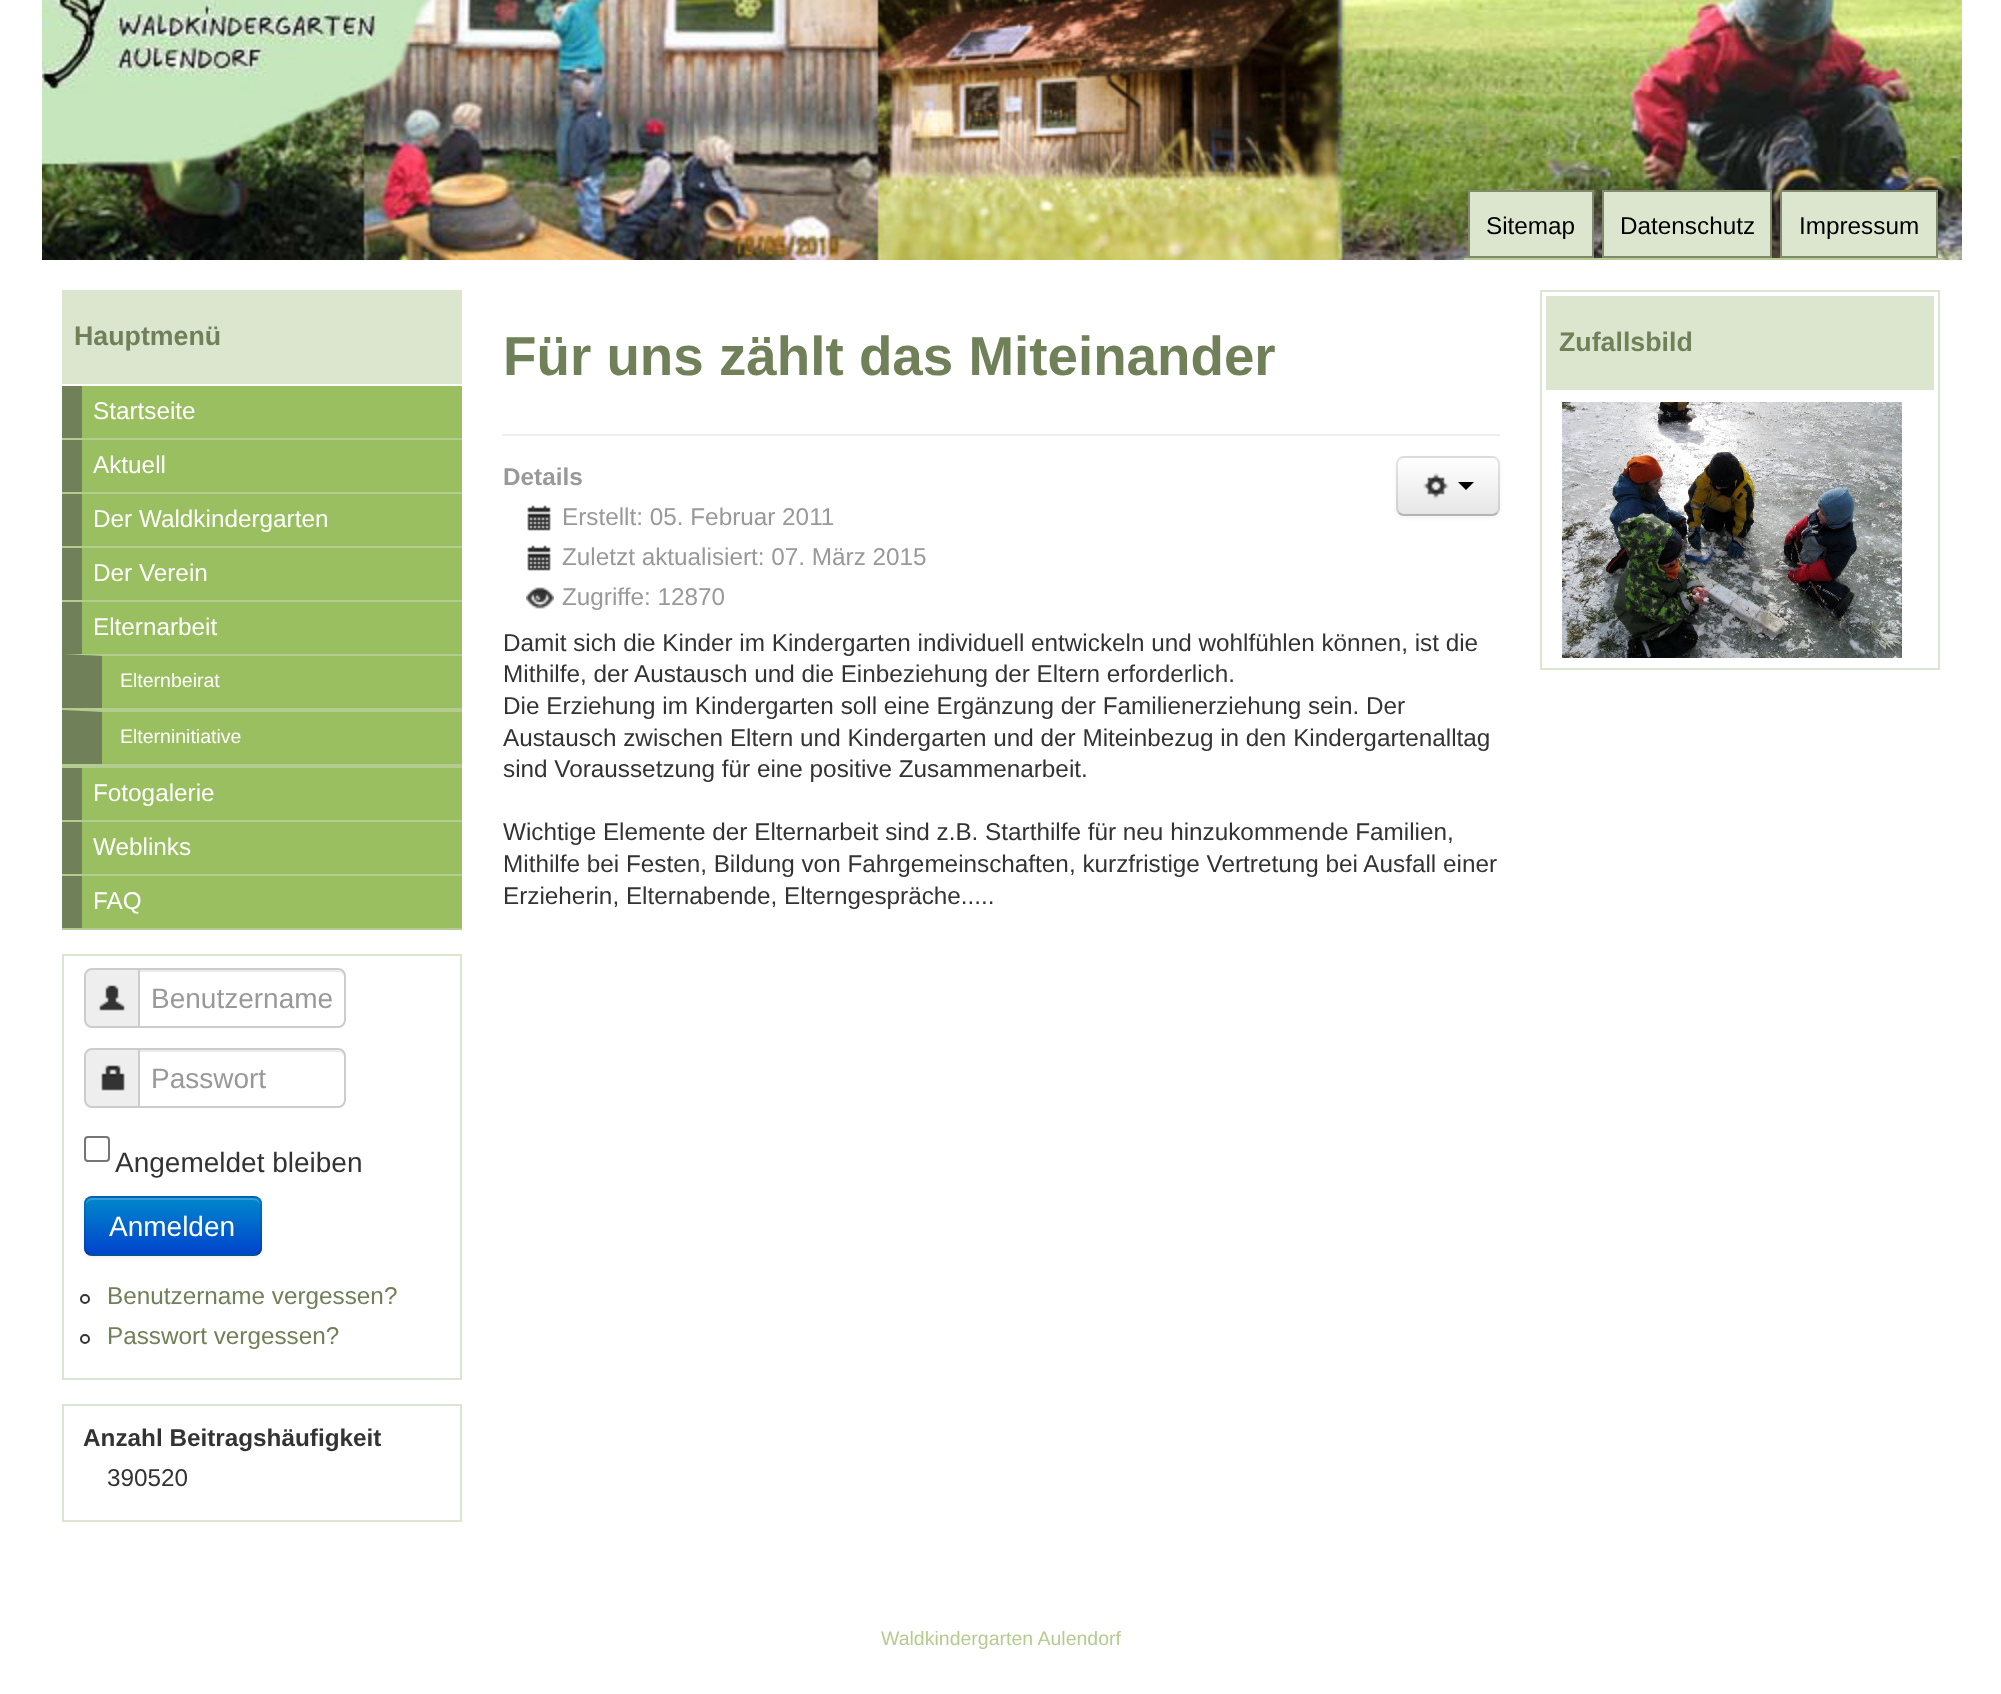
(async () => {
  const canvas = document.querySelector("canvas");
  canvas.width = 2001;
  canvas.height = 1694;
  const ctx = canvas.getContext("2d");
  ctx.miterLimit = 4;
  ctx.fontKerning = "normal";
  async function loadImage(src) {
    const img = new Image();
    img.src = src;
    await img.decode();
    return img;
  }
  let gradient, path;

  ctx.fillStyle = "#ffffff";
  ctx.fillRect(0, 0, 2001, 1694);
  ctx.drawImage(await loadImage("img/1.png"), 42, 0, 1920, 260);
  ctx.fillStyle = "#dce6cf";
  ctx.beginPath();
  ctx.rect(1469, 191, 124, 66);
  ctx.fill();
  ctx.strokeStyle = "#80896c";
  ctx.lineWidth = 2;
  ctx.stroke();
  ctx.beginPath();
  ctx.rect(1603, 191, 168, 66);
  ctx.fill();
  ctx.stroke();
  ctx.fillStyle = "#b4cc8f";
  ctx.fillRect(1464, 258, 478, 2);
  ctx.fillStyle = "#dce6cf";
  ctx.beginPath();
  ctx.rect(1781, 191, 156, 66);
  ctx.fill();
  ctx.stroke();
  for (const [x, y, w, h, color] of [
    [62, 290, 400, 94, "#dce6cf"],
    [62, 438, 400, 2, "#b4cc8f"],
    [82, 386, 380, 52, "#99bf60"],
    [62, 386, 20, 52, "#708059"],
    [62, 492, 400, 2, "#b4cc8f"],
    [82, 440, 380, 52, "#99bf60"],
    [62, 440, 20, 52, "#708059"],
    [62, 546, 400, 2, "#b4cc8f"],
    [82, 494, 380, 52, "#99bf60"],
    [62, 494, 20, 52, "#708059"],
    [62, 600, 400, 2, "#b4cc8f"],
    [82, 548, 380, 52, "#99bf60"],
    [62, 548, 20, 52, "#708059"],
    [62, 764, 400, 4, "#b4cc8f"],
    [82, 602, 380, 52, "#99bf60"],
    [62, 602, 20, 52, "#708059"],
    [62, 708, 400, 2, "#b4cc8f"],
    [63, 654, 399, 54, "#99bf60"],
  ]) {
    ctx.fillStyle = color;
    ctx.fillRect(x, y, w, h);
  }
  ctx.fillStyle = "#b4cc8f";
  path = new Path2D("M62 654H462V656H102Z");
  ctx.fill(path);
  ctx.fillStyle = "#708059";
  path = new Path2D("M62 708V654L102 656V708Z");
  ctx.fill(path);
  ctx.fillStyle = "#99bf60";
  ctx.fillRect(63, 710, 399, 54);
  ctx.fillStyle = "#b4cc8f";
  path = new Path2D("M62 710H462V712H102Z");
  ctx.fill(path);
  ctx.fillStyle = "#708059";
  path = new Path2D("M62 764V710L102 712V764Z");
  ctx.fill(path);
  for (const [x, y, w, h, color] of [
    [62, 820, 400, 2, "#b4cc8f"],
    [82, 768, 380, 52, "#99bf60"],
    [62, 768, 20, 52, "#708059"],
    [62, 874, 400, 2, "#b4cc8f"],
    [82, 822, 380, 52, "#99bf60"],
    [62, 822, 20, 52, "#708059"],
    [62, 928, 400, 2, "#b4cc8f"],
    [82, 876, 380, 52, "#99bf60"],
    [62, 876, 20, 52, "#708059"],
  ]) {
    ctx.fillStyle = color;
    ctx.fillRect(x, y, w, h);
  }
  ctx.strokeStyle = "#dce6cf";
  ctx.strokeRect(63, 955, 398, 424);
  ctx.fillStyle = "#eeeeee";
  ctx.beginPath();
  ctx.roundRect(85, 969, 54, 58, [7, 0, 0, 7]);
  ctx.fill();
  ctx.strokeStyle = "#cccccc";
  ctx.stroke();
  ctx.drawImage(await loadImage("img/2.png"), 99, 985, 26, 27);
  ctx.fillStyle = "#ffffff";
  ctx.beginPath();
  ctx.roundRect(138, 968, 208, 60, [0, 8, 8, 0]);
  ctx.fill();
  ctx.fillStyle = "#ececec";
  path = new Path2D("M140 972H338C341 972 344 975 344 978V976C344 973 341 970 338 970H140Z");
  ctx.fill(path);
  ctx.beginPath();
  ctx.roundRect(139, 969, 206, 58, [0, 7, 7, 0]);
  ctx.stroke();
  ctx.fillStyle = "#eeeeee";
  ctx.beginPath();
  ctx.roundRect(85, 1049, 54, 58, [7, 0, 0, 7]);
  ctx.fill();
  ctx.stroke();
  ctx.drawImage(await loadImage("img/3.png"), 101, 1065, 24, 27);
  ctx.fillStyle = "#ffffff";
  ctx.beginPath();
  ctx.roundRect(138, 1048, 208, 60, [0, 8, 8, 0]);
  ctx.fill();
  ctx.fillStyle = "#ececec";
  path = new Path2D("M140 1052H338C341 1052 344 1055 344 1058V1056C344 1053 341 1050 338 1050H140Z");
  ctx.fill(path);
  ctx.beginPath();
  ctx.roundRect(139, 1049, 206, 58, [0, 7, 7, 0]);
  ctx.stroke();
  ctx.beginPath();
  ctx.roundRect(85, 1137, 24, 24, 3);
  ctx.strokeStyle = "#767676";
  ctx.stroke();
  ctx.fillStyle = "rgba(0, 0, 0, 0.05)";
  ctx.filter = "blur(2px)";
  ctx.beginPath();
  ctx.roundRect(84, 1198, 178, 60, 8);
  ctx.fill();
  ctx.filter = "none";
  ctx.fillStyle = "#006dcc";
  ctx.beginPath();
  ctx.roundRect(84, 1196, 178, 60, 8);
  ctx.fill();
  ctx.save();
  ctx.beginPath();
  ctx.roundRect(84, 1196, 178, 60, 8);
  ctx.clip();
  gradient = ctx.createLinearGradient(173, 1198, 173, 1254);
  gradient.addColorStop(0, "#0088cc");
  gradient.addColorStop(1, "#0044cc");
  ctx.fillStyle = gradient;
  ctx.fillRect(84, 1198, 178, 56);
  ctx.restore();
  ctx.fillStyle = "rgba(255, 255, 255, 0.2)";
  path = new Path2D("M92 1200H254C257 1200 260 1203 260 1206V1204C260 1201 257 1198 254 1198H92C89 1198 86 1201 86 1204V1206C86 1203 89 1200 92 1200Z");
  ctx.fill(path);
  path = new Path2D("M259 1253C257.5 1254.5 256 1255 254 1255H92C90 1255 88.5 1254.5 87 1253");
  ctx.strokeStyle = "rgba(0, 0, 0, 0.25)";
  ctx.stroke(path);
  path = new Path2D("M87 1253C84 1250 85 1244.5 85 1240.5V1211.5C85 1206 84 1197 92 1197H227C265 1197 261 1191 261 1226V1240.5C261 1244.5 262 1250 259 1253");
  ctx.strokeStyle = "rgba(0, 0, 0, 0.1)";
  ctx.stroke(path);
  ctx.beginPath();
  ctx.arc(85, 1299, 4, 0, Math.PI * 2);
  ctx.strokeStyle = "#333333";
  ctx.stroke();
  ctx.beginPath();
  ctx.arc(85, 1339, 4, 0, Math.PI * 2);
  ctx.stroke();
  ctx.strokeStyle = "#dce6cf";
  ctx.strokeRect(63, 1405, 398, 116);
  ctx.fillStyle = "#eeeeee";
  ctx.fillRect(502, 434, 998, 2);
  ctx.drawImage(await loadImage("img/4.png"), 527, 505, 24, 26);
  ctx.drawImage(await loadImage("img/4.png"), 527, 545, 24, 26);
  ctx.drawImage(await loadImage("img/5.png"), 526, 587, 28, 22);
  ctx.fillStyle = "rgba(0, 0, 0, 0.05)";
  ctx.filter = "blur(2px)";
  ctx.beginPath();
  ctx.roundRect(1396, 458, 104, 60, 8);
  ctx.fill();
  ctx.filter = "none";
  ctx.fillStyle = "#f5f5f5";
  ctx.beginPath();
  ctx.roundRect(1396, 456, 104, 60, 8);
  ctx.fill();
  ctx.save();
  ctx.beginPath();
  ctx.roundRect(1396, 456, 104, 60, 8);
  ctx.clip();
  gradient = ctx.createLinearGradient(1448, 458, 1448, 514);
  gradient.addColorStop(0, "#ffffff");
  gradient.addColorStop(1, "#e6e6e6");
  ctx.fillStyle = gradient;
  ctx.fillRect(1396, 458, 104, 56);
  ctx.restore();
  path = new Path2D("M1497 513C1495.5 514.5 1494 515 1492 515H1404C1402 515 1400.5 514.5 1399 513");
  ctx.strokeStyle = "#b3b3b3";
  ctx.stroke(path);
  path = new Path2D("M1399 513C1397.5 511.5 1397 510 1397 508V464C1397 462 1397.5 460.5 1399 459C1400.5 457.5 1402 457 1404 457H1492C1494 457 1495.5 457.5 1497 459C1498.5 460.5 1499 462 1499 464V508C1499 510 1498.5 511.5 1497 513");
  ctx.strokeStyle = "rgba(0, 0, 0, 0.1)";
  ctx.stroke(path);
  ctx.drawImage(await loadImage("img/6.png"), 1423, 473, 26, 26);
  ctx.fillStyle = "#000000";
  path = new Path2D("M1458 482H1474L1466 490Z");
  ctx.fill(path);
  ctx.strokeStyle = "#dce6cf";
  ctx.strokeRect(1541, 291, 398, 378);
  ctx.fillStyle = "#dce6cf";
  ctx.fillRect(1546, 296, 388, 94);
  ctx.drawImage(await loadImage("img/7.png"), 1562, 402, 340, 256);
  ctx.font = "24.3px Liberation Sans";
  ctx.fillStyle = "#000000";
  for (const [text, x, y] of [
    ["Sitemap", 1486, 234],
    ["Datenschutz", 1620, 234],
    ["Impressum", 1799, 234],
  ]) {
    ctx.fillText(text, x, y);
  }
  ctx.font = "bold 26.75px Liberation Sans";
  ctx.fillStyle = "#708059";
  ctx.fillText("Hauptmenü", 74, 345);
  ctx.font = "24.3px Liberation Sans";
  ctx.fillStyle = "#ffffff";
  for (const [text, x, y] of [
    ["Startseite", 93, 419],
    ["Aktuell", 93, 473],
    ["Der Waldkindergarten", 93, 527],
    ["Der Verein", 93, 581],
    ["Elternarbeit", 93, 635],
  ]) {
    ctx.fillText(text, x, y);
  }
  ctx.font = "19.5px Liberation Sans";
  ctx.fillText("Elternbeirat", 120, 687);
  ctx.fillText("Elterninitiative", 120, 743);
  ctx.font = "24.3px Liberation Sans";
  for (const [text, x, y] of [
    ["Fotogalerie", 93, 801],
    ["Weblinks", 93, 855],
    ["FAQ", 93, 909],
  ]) {
    ctx.fillText(text, x, y);
  }
  ctx.font = "28px Liberation Sans";
  ctx.fillStyle = "#999999";
  ctx.fillText("Benutzername", 151, 1008);
  ctx.fillText("Passwort", 151, 1088);
  ctx.fillStyle = "#333333";
  ctx.fillText("Angemeldet bleiben", 115, 1172);
  ctx.fillStyle = "#ffffff";
  ctx.fillText("Anmelden", 109, 1236);
  ctx.font = "24.3px Liberation Sans";
  ctx.fillStyle = "#708059";
  ctx.fillText("Benutzername vergessen?", 107, 1304);
  ctx.fillText("Passwort vergessen?", 107, 1344);
  ctx.font = "bold 24.3px Liberation Sans";
  ctx.fillStyle = "#333333";
  ctx.fillText("Anzahl Beitragshäufigkeit", 83, 1446);
  ctx.font = "24.3px Liberation Sans";
  ctx.fillText("390520", 107, 1486);
  ctx.font = "bold 54.75px Liberation Sans";
  ctx.fillStyle = "#708059";
  ctx.fillText("Für uns zählt das Miteinander", 503, 375);
  ctx.font = "bold 24.3px Liberation Sans";
  ctx.fillStyle = "#999999";
  ctx.fillText("Details", 503, 485);
  ctx.font = "24.3px Liberation Sans";
  for (const [text, x, y] of [
    ["Erstellt: 05. Februar 2011", 562, 525],
    ["Zuletzt aktualisiert: 07. März 2015", 562, 565],
    ["Zugriffe: 12870", 562, 605],
  ]) {
    ctx.fillText(text, x, y);
  }
  ctx.fillStyle = "#333333";
  for (const [text, x, y] of [
    ["Damit sich die Kinder im Kindergarten individuell entwickeln und wohlfühlen können, ist die", 503, 651],
    ["Mithilfe, der Austausch und die Einbeziehung der Eltern erforderlich.", 503, 682],
    ["Die Erziehung im Kindergarten soll eine Ergänzung der Familienerziehung sein. Der", 503, 714],
    ["Austausch zwischen Eltern und Kindergarten und der Miteinbezug in den Kindergartenalltag", 503, 746],
    ["sind Voraussetzung für eine positive Zusammenarbeit.", 503, 777],
    ["Wichtige Elemente der Elternarbeit sind z.B. Starthilfe für neu hinzukommende Familien,", 503, 840],
    ["Mithilfe bei Festen, Bildung von Fahrgemeinschaften, kurzfristige Vertretung bei Ausfall einer", 503, 872],
    ["Erzieherin, Elternabende, Elterngespräche.....", 503, 904],
  ]) {
    ctx.fillText(text, x, y);
  }
  ctx.font = "bold 26.75px Liberation Sans";
  ctx.fillStyle = "#708059";
  ctx.fillText("Zufallsbild", 1559, 351);
  ctx.font = "19.5px Liberation Sans";
  ctx.fillStyle = "#b4cc8f";
  ctx.fillText("Waldkindergarten Aulendorf", 881, 1645);
})();
